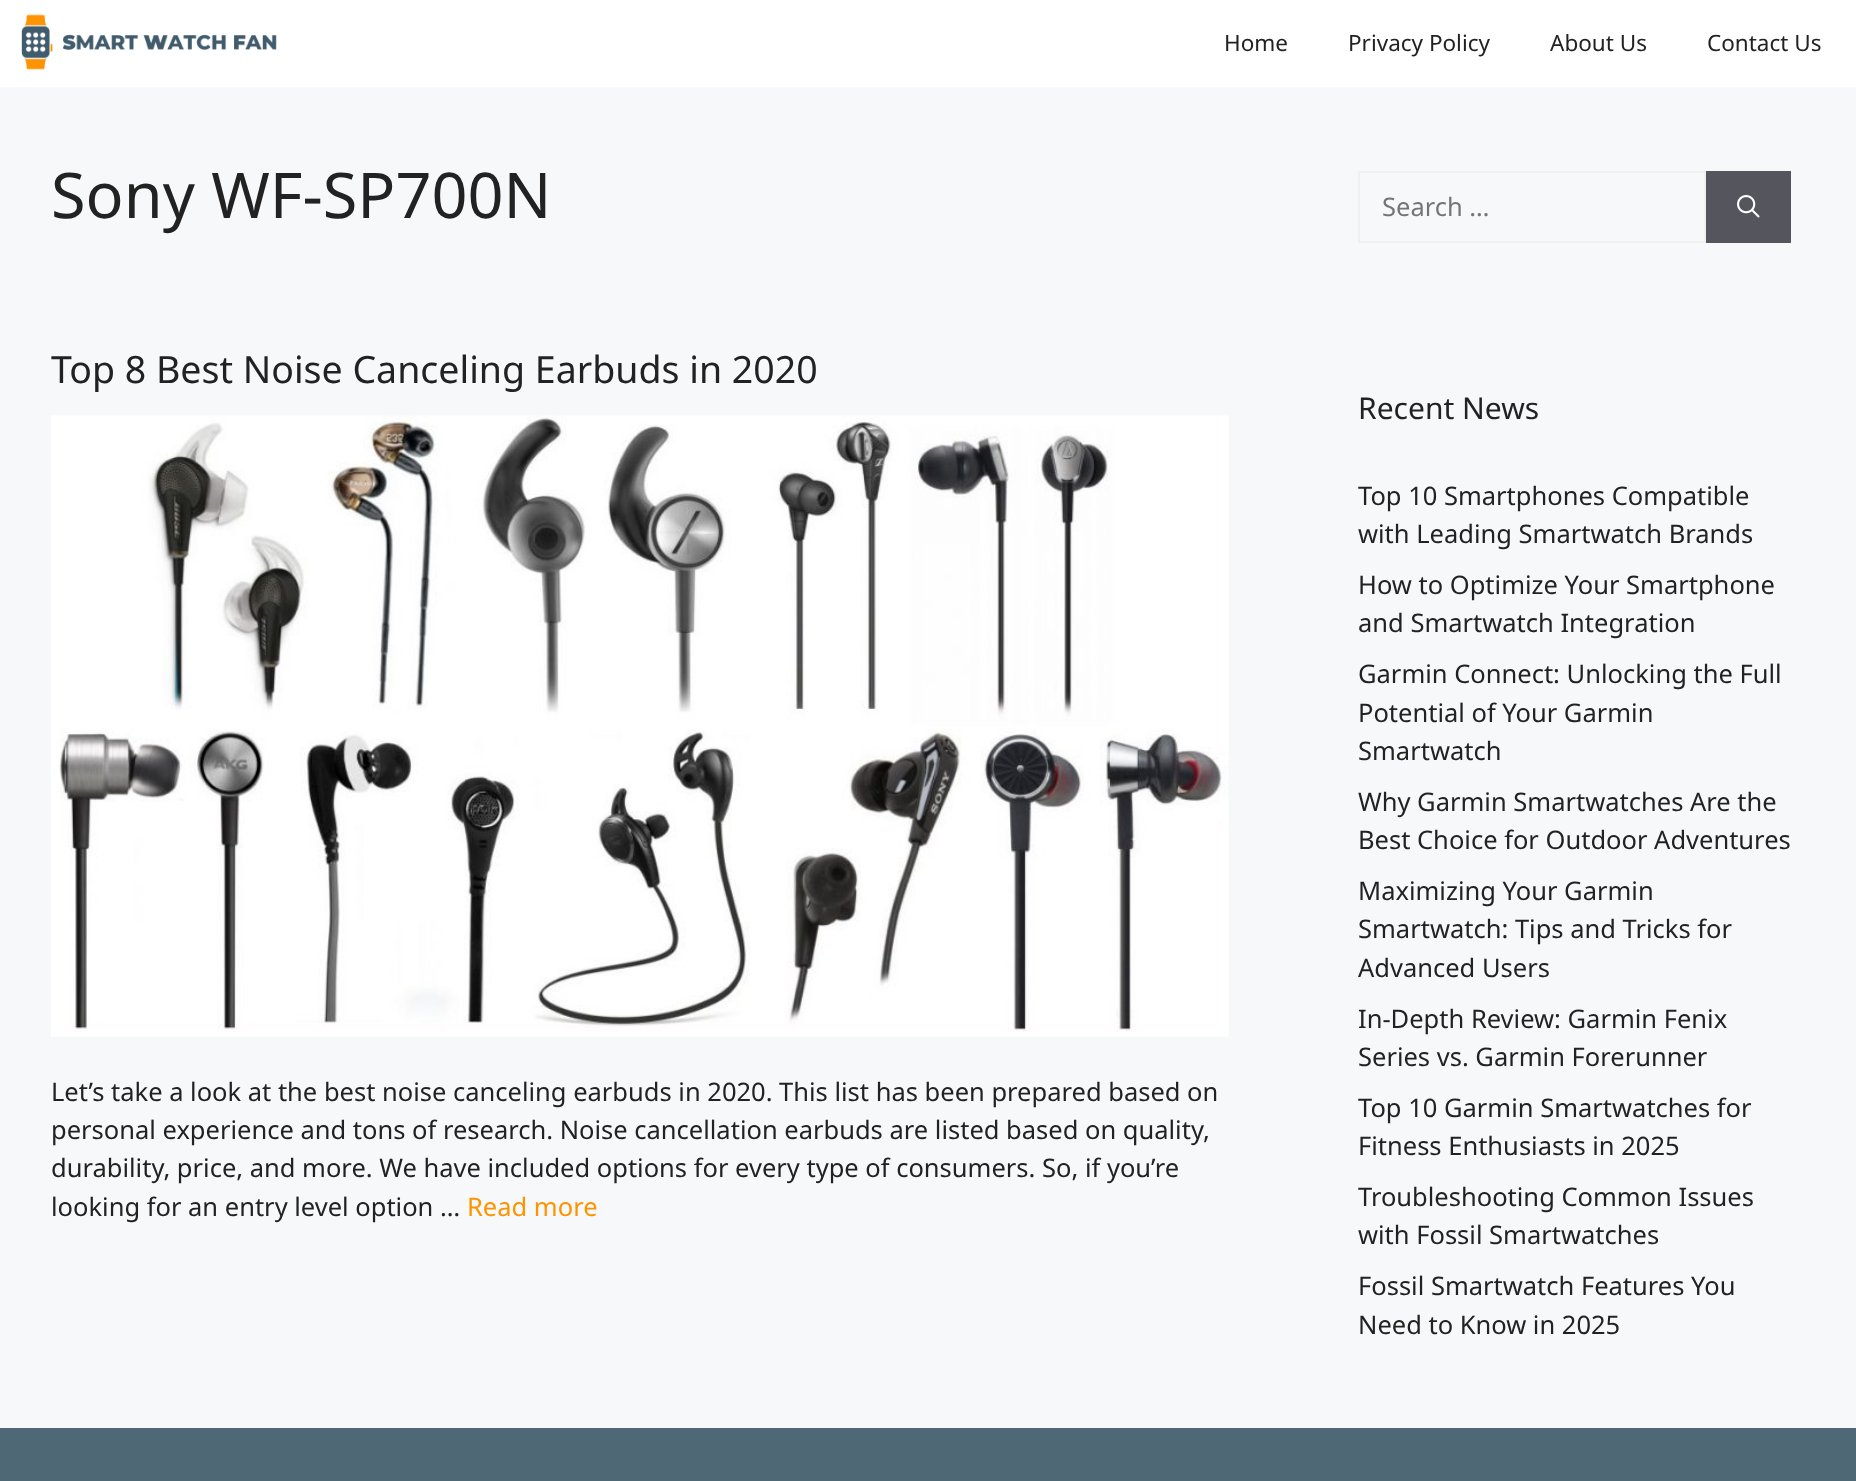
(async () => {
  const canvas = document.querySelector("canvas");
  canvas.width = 1856;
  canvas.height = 1481;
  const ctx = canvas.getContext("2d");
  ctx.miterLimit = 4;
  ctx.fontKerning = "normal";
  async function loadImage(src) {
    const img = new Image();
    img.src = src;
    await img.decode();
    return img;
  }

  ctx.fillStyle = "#f7f8f9";
  ctx.fillRect(0, 0, 1856, 1481);
  ctx.fillStyle = "#ffffff";
  ctx.fillRect(0, 0, 1856, 87);
  ctx.drawImage(await loadImage("img/1.png"), 21, 14, 256, 56);
  ctx.drawImage(await loadImage("img/2.png"), 51, 415, 1178, 622);
  ctx.strokeStyle = "#f0f0f0";
  ctx.lineWidth = 2;
  ctx.strokeRect(1359, 172, 346, 70);
  ctx.fillStyle = "#55555e";
  ctx.fillRect(1706, 171, 85, 72);
  ctx.drawImage(await loadImage("img/3.png"), 1737, 195, 23, 23);
  ctx.fillStyle = "#4f6876";
  ctx.fillRect(0, 1428, 1856, 53);
  ctx.font = "22.5px Noto Sans";
  ctx.fillStyle = "#222222";
  for (const [text, x, y] of [
    ["Home", 1224, 51],
    ["Privacy Policy", 1348, 51],
    ["About Us", 1550, 51],
    ["Contact Us", 1707, 51],
  ]) {
    ctx.fillText(text, x, y);
  }
  ctx.font = "63px Noto Sans";
  ctx.fillText("Sony WF-SP700N", 51, 218);
  ctx.font = "37.5px Noto Sans";
  ctx.fillText("Top 8 Best Noise Canceling Earbuds in 2020", 51, 383);
  ctx.font = "25.5px Noto Sans";
  for (const [text, x, y] of [
    ["Let’s take a look at the best noise canceling earbuds in 2020. This list has been prepared based on", 51, 1101],
    ["personal experience and tons of research. Noise cancellation earbuds are listed based on quality,", 51, 1139],
    ["durability, price, and more. We have included options for every type of consumers. So, if you’re", 51, 1177],
    ["looking for an entry level option …", 51, 1216],
  ]) {
    ctx.fillText(text, x, y);
  }
  ctx.fillStyle = "#fe9300";
  ctx.fillText("Read more", 467, 1216);
  ctx.fillStyle = "#757575";
  ctx.fillText("Search …", 1382, 216);
  ctx.font = "30px Noto Sans";
  ctx.fillStyle = "#222222";
  ctx.fillText("Recent News", 1358, 419);
  ctx.font = "25.5px Noto Sans";
  for (const [text, x, y] of [
    ["Top 10 Smartphones Compatible", 1358, 505],
    ["with Leading Smartwatch Brands", 1358, 543],
    ["How to Optimize Your Smartphone", 1358, 594],
    ["and Smartwatch Integration", 1358, 632],
    ["Garmin Connect: Unlocking the Full", 1358, 683],
    ["Potential of Your Garmin", 1358, 722],
    ["Smartwatch", 1358, 760],
    ["Why Garmin Smartwatches Are the", 1358, 811],
    ["Best Choice for Outdoor Adventures", 1358, 849],
    ["Maximizing Your Garmin", 1358, 900],
    ["Smartwatch: Tips and Tricks for", 1358, 938],
    ["Advanced Users", 1358, 977],
    ["In-Depth Review: Garmin Fenix", 1358, 1028],
    ["Series vs. Garmin Forerunner", 1358, 1066],
    ["Top 10 Garmin Smartwatches for", 1358, 1117],
    ["Fitness Enthusiasts in 2025", 1358, 1155],
    ["Troubleshooting Common Issues", 1358, 1206],
    ["with Fossil Smartwatches", 1358, 1244],
    ["Fossil Smartwatch Features You", 1358, 1295],
    ["Need to Know in 2025", 1358, 1334],
  ]) {
    ctx.fillText(text, x, y);
  }
})();
